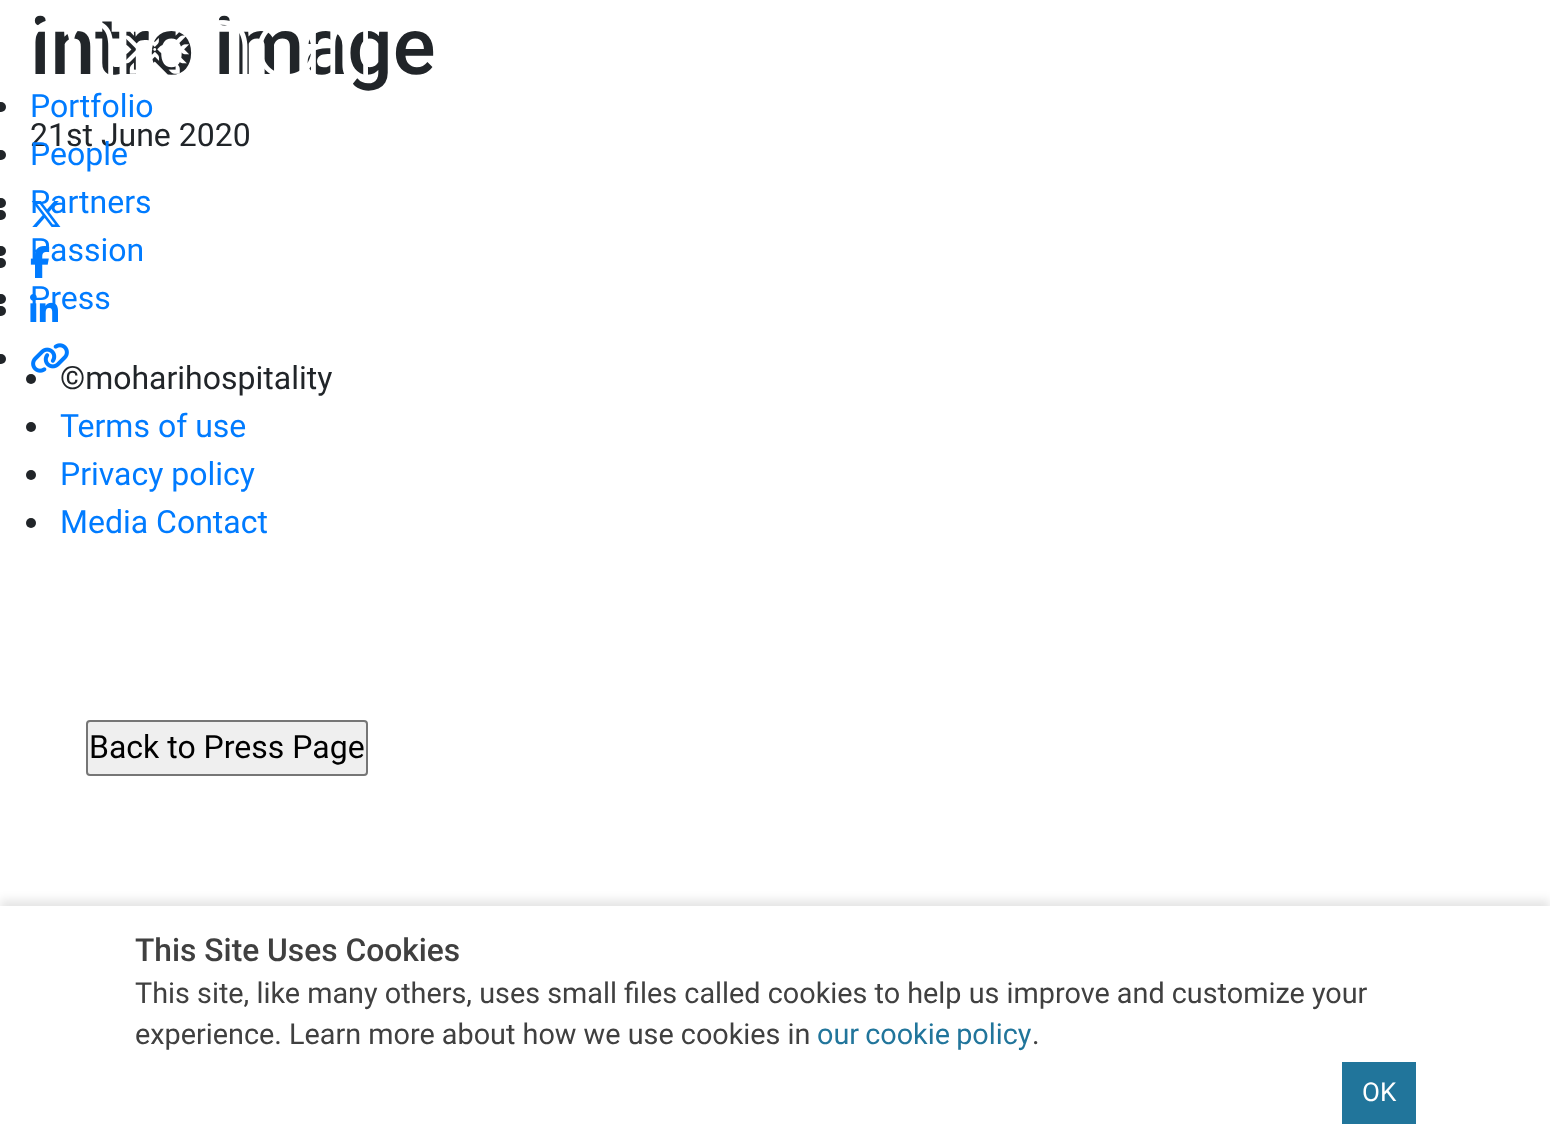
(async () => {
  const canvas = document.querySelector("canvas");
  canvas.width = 1550;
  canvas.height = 1148;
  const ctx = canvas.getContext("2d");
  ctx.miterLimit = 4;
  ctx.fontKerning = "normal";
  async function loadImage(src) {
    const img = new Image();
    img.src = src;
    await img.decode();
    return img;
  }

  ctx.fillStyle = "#ffffff";
  ctx.fillRect(0, 0, 1550, 1148);
  ctx.fillStyle = "#212529";
  ctx.beginPath();
  ctx.arc(1, 215, 5, 0, Math.PI * 2);
  ctx.fill();
  ctx.drawImage(await loadImage("img/1.png"), 31, 201, 30, 26);
  ctx.beginPath();
  ctx.arc(1, 263, 5, 0, Math.PI * 2);
  ctx.fill();
  ctx.drawImage(await loadImage("img/2.png"), 30, 246, 20, 32);
  ctx.beginPath();
  ctx.arc(1, 311, 5, 0, Math.PI * 2);
  ctx.fill();
  ctx.drawImage(await loadImage("img/3.png"), 30, 294, 28, 28);
  ctx.beginPath();
  ctx.arc(1, 359, 5, 0, Math.PI * 2);
  ctx.fill();
  ctx.drawImage(await loadImage("img/4.png"), 31, 343, 38, 30);
  ctx.beginPath();
  ctx.arc(1, 107, 5, 0, Math.PI * 2);
  ctx.fill();
  ctx.beginPath();
  ctx.arc(1, 155, 5, 0, Math.PI * 2);
  ctx.fill();
  ctx.beginPath();
  ctx.arc(1, 203, 5, 0, Math.PI * 2);
  ctx.fill();
  ctx.beginPath();
  ctx.arc(1, 251, 5, 0, Math.PI * 2);
  ctx.fill();
  ctx.beginPath();
  ctx.arc(1, 299, 5, 0, Math.PI * 2);
  ctx.fill();
  ctx.beginPath();
  ctx.arc(31, 379, 5, 0, Math.PI * 2);
  ctx.fill();
  ctx.beginPath();
  ctx.arc(31, 427, 5, 0, Math.PI * 2);
  ctx.fill();
  ctx.beginPath();
  ctx.arc(31, 475, 5, 0, Math.PI * 2);
  ctx.fill();
  ctx.beginPath();
  ctx.arc(31, 523, 5, 0, Math.PI * 2);
  ctx.fill();
  ctx.fillStyle = "#efefef";
  ctx.beginPath();
  ctx.roundRect(87, 721, 280, 54, 3);
  ctx.fill();
  ctx.strokeStyle = "#767676";
  ctx.lineWidth = 2;
  ctx.stroke();
  ctx.fillStyle = "rgba(0, 0, 0, 0.1)";
  ctx.filter = "blur(5px)";
  ctx.beginPath();
  ctx.rect(0, 900, 1550, 242);
  ctx.fill();
  ctx.filter = "none";
  ctx.fillStyle = "#ffffff";
  ctx.fillRect(0, 906, 1550, 242);
  ctx.fillStyle = "#21759b";
  ctx.fillRect(1342, 1062, 74, 62);
  ctx.font = "500 80px Roboto";
  ctx.fillStyle = "#212529";
  ctx.fillText("intro image", 30, 74);
  ctx.font = "32px Roboto";
  ctx.fillText("21st June 2020", 30, 146);
  ctx.drawImage(await loadImage("img/5.png"), 35, 20, 333, 55);
  ctx.fillStyle = "#007bff";
  for (const [text, x, y] of [
    ["Portfolio", 30, 117],
    ["People", 30, 165],
    ["Partners", 30, 213],
    ["Passion", 30, 261],
    ["Press", 30, 309],
  ]) {
    ctx.fillText(text, x, y);
  }
  ctx.fillStyle = "#212529";
  ctx.fillText("©moharihospitality", 60, 389);
  ctx.fillStyle = "#007bff";
  for (const [text, x, y] of [
    ["Terms of use", 60, 437],
    ["Privacy policy", 60, 485],
    ["Media Contact", 60, 533],
  ]) {
    ctx.fillText(text, x, y);
  }
  ctx.fillStyle = "#000000";
  ctx.fillText("Back to Press Page", 89, 758);
  ctx.font = "500 31.75px Roboto";
  ctx.fillStyle = "#404040";
  ctx.fillText("This Site Uses Cookies", 135, 961);
  ctx.font = "28.8px Roboto";
  ctx.fillText("This site, like many others, uses small files called cookies to help us improve and customize your", 135, 1003);
  ctx.fillText("experience. Learn more about how we use cookies in", 135, 1044);
  ctx.wordSpacing = "-1px";
  ctx.fillStyle = "#21759b";
  ctx.fillText("our cookie policy", 817, 1044);
  ctx.wordSpacing = "0px";
  ctx.fillStyle = "#404040";
  ctx.fillText(".", 1032, 1044);
  ctx.font = "26px Roboto";
  ctx.fillStyle = "#ffffff";
  ctx.fillText("OK", 1362, 1101);
})();
